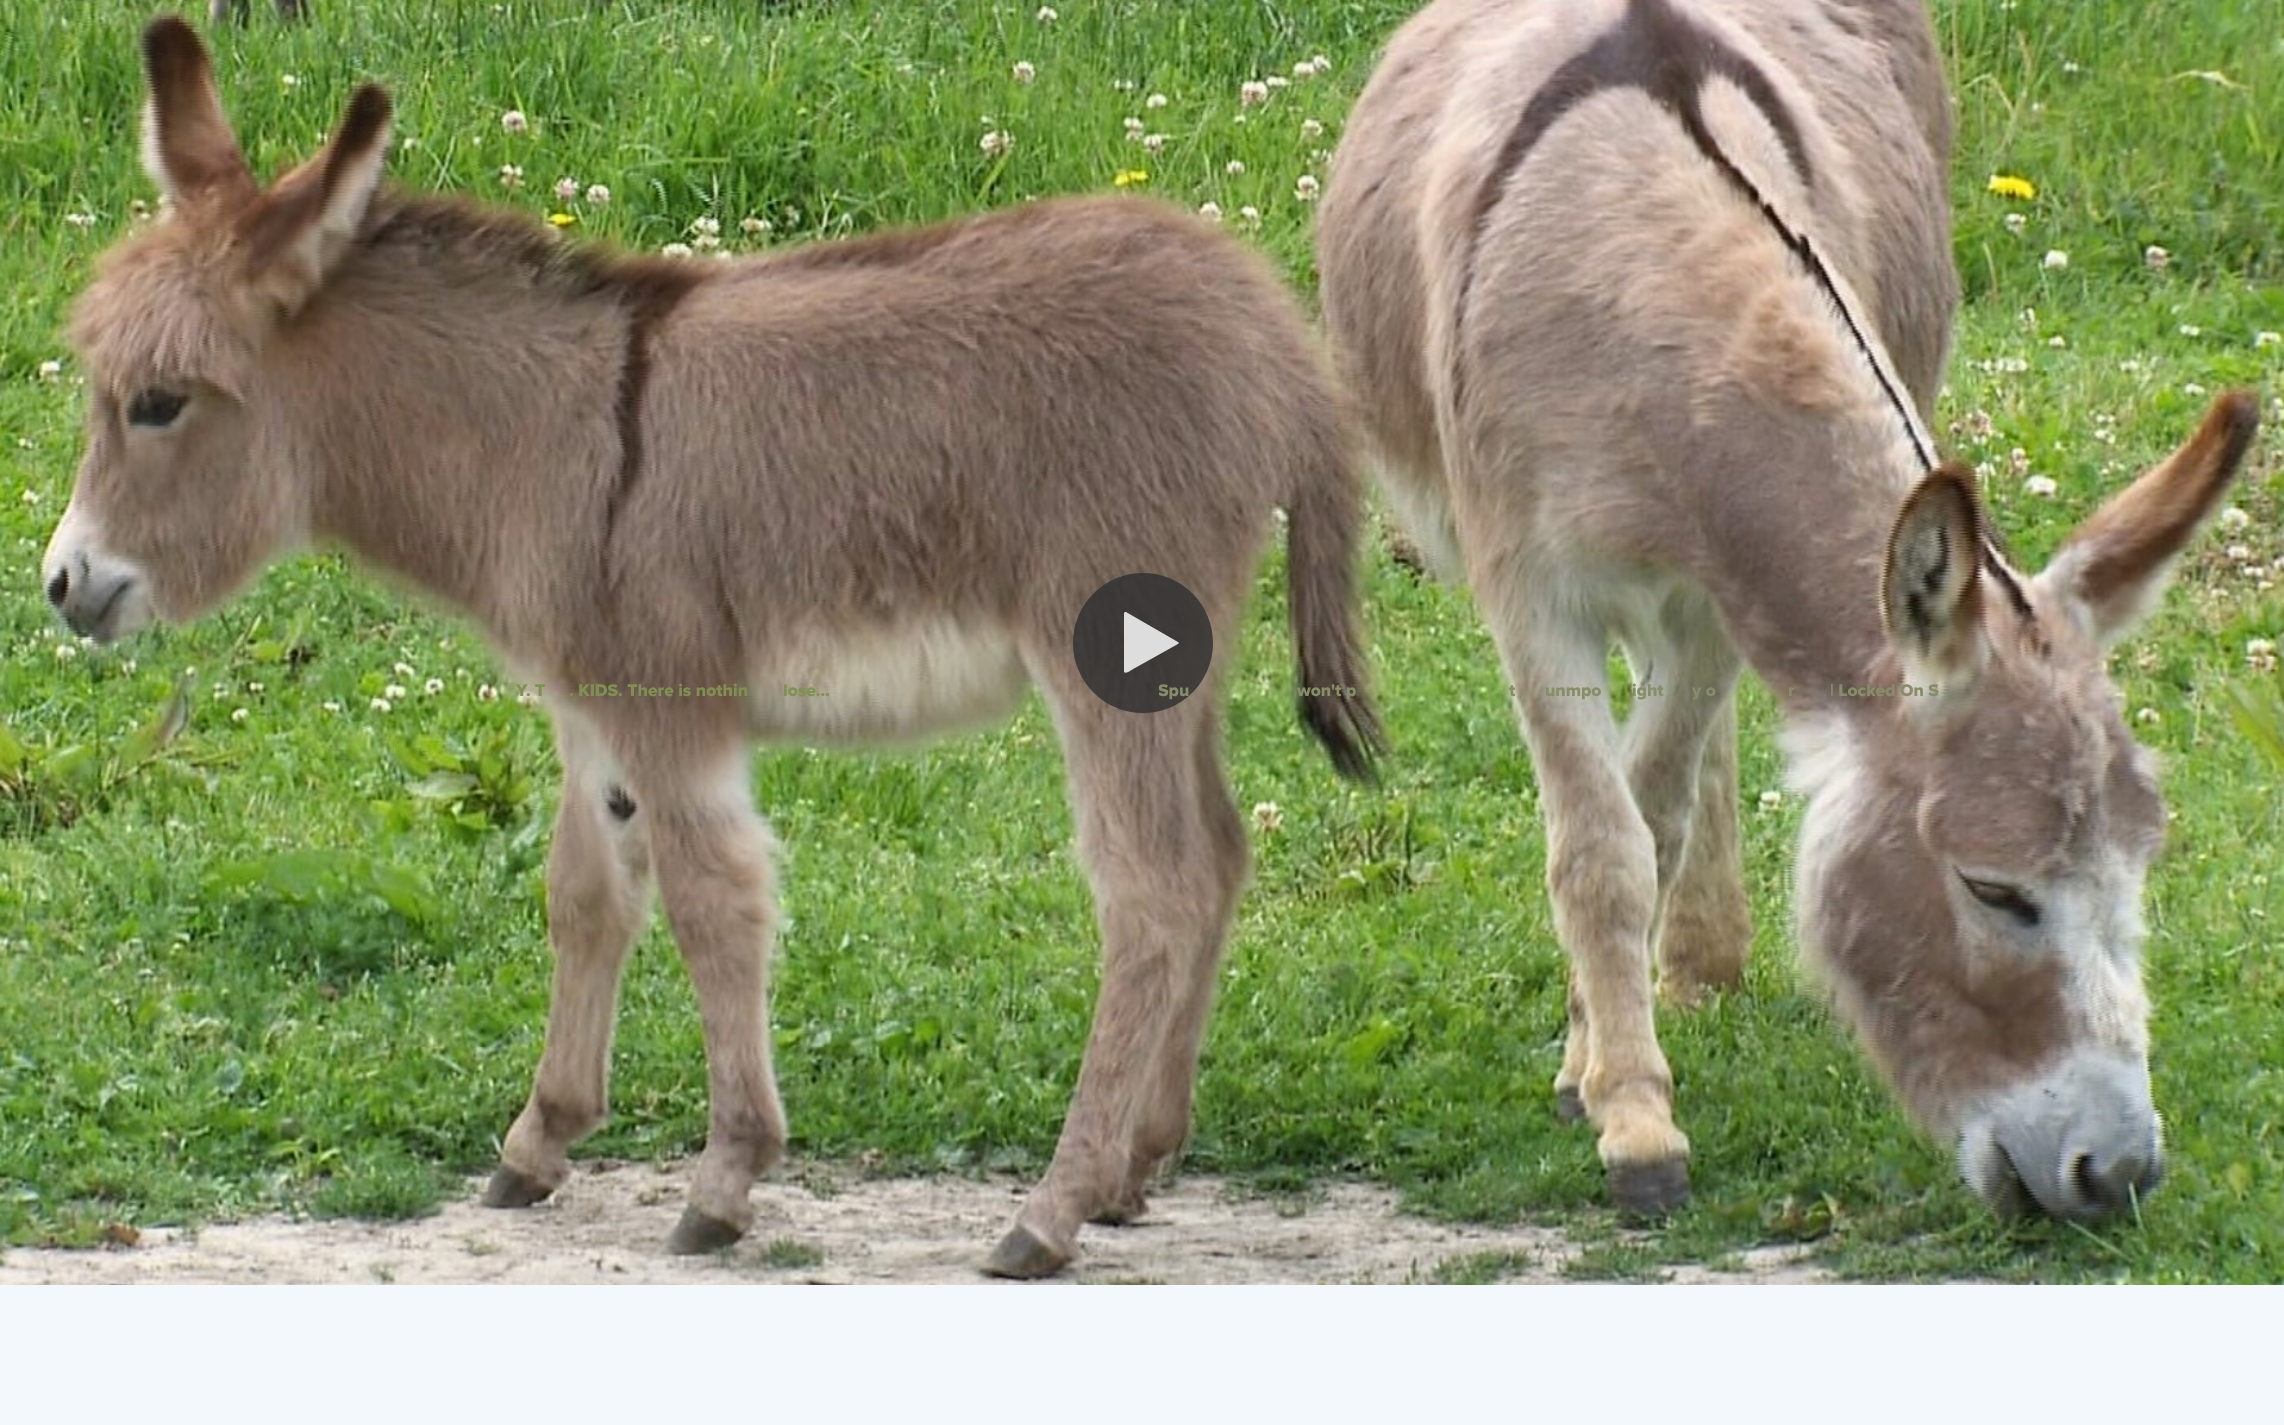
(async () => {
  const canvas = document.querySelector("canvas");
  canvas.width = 2284;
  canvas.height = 1425;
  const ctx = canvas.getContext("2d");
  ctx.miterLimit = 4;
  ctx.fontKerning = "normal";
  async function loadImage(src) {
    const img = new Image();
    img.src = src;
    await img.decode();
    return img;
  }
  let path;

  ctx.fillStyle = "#f3f8fc";
  ctx.fillRect(0, 0, 2284, 1425);
  ctx.drawImage(await loadImage("img/1.png"), 0, 0, 2284, 1285);
  ctx.fillStyle = "rgba(51, 51, 51, 0.85)";
  ctx.beginPath();
  ctx.arc(1143, 643, 70, 0, Math.PI * 2);
  ctx.fill();
  ctx.fillStyle = "#dddddd";
  path = new Path2D("M1178 644L1135 668C1134 668 1126 675 1124 672V613C1124 612 1125 612 1126 612L1178 642C1179 642 1179 643 1178 644Z");
  ctx.fill(path);
  ctx.font = "800 17.5px Proxima Nova";
  ctx.fillStyle = "#809054";
  for (const [text, x, y] of [
    ["Y. T", 516, 696],
    [". KIDS. There is nothin", 569, 696],
    ["lose…", 783, 696],
  ]) {
    ctx.fillText(text, x, y);
  }
  ctx.save();
  ctx.beginPath();
  ctx.rect(1159, 679, 1106, 25);
  ctx.clip();
  ctx.fillStyle = "#868d68";
  ctx.fillText("Spu", 1158, 696);
  ctx.restore();
  ctx.fillStyle = "#868d68";
  for (const [text, x, y] of [
    ["won't p", 1297, 696],
    ["t", 1509, 696],
    ["unmpo", 1545, 696],
    ["ight", 1632, 696],
    ["y o", 1692, 696],
    ["r", 1788, 696],
    ["| Locked On S", 1830, 696],
  ]) {
    ctx.fillText(text, x, y);
  }
})();
